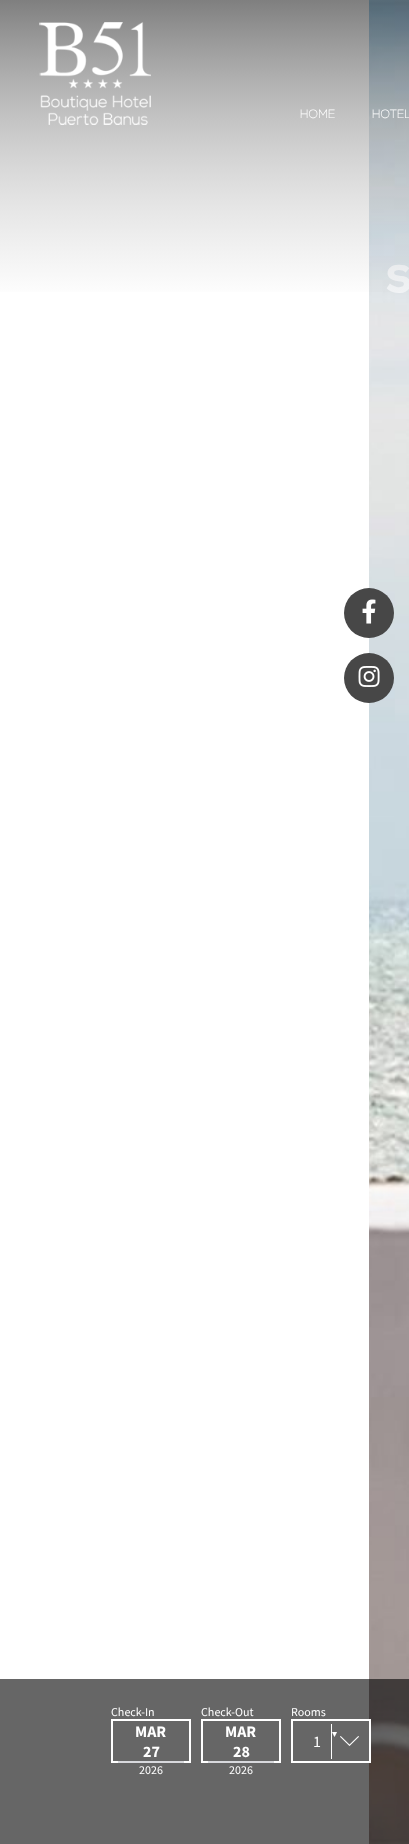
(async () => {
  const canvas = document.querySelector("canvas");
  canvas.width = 409;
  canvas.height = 1844;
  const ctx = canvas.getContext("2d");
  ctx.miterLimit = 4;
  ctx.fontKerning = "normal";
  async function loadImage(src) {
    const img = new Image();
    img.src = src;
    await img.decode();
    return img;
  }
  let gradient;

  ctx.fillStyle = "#ffffff";
  ctx.fillRect(0, 0, 409, 1844);
  ctx.drawImage(await loadImage("img/4.png"), 369, 0, 40, 1844);
  ctx.fillStyle = "#474747";
  ctx.beginPath();
  ctx.arc(369, 613, 25, 0, Math.PI * 2);
  ctx.fill();
  ctx.drawImage(await loadImage("img/2.png"), 362, 599, 14, 25);
  ctx.beginPath();
  ctx.arc(369, 678, 25, 0, Math.PI * 2);
  ctx.fill();
  ctx.drawImage(await loadImage("img/3.png"), 358, 666, 22, 21);
  ctx.fillStyle = "rgba(0, 0, 0, 0.6)";
  ctx.fillRect(0, 1679, 409, 165);
  ctx.strokeStyle = "#ffffff";
  ctx.lineWidth = 2;
  ctx.strokeRect(112, 1720, 78, 42);
  ctx.fillStyle = "#d8d9dd";
  ctx.fillRect(118, 1761, 66, 2);
  ctx.strokeRect(202, 1720, 78, 42);
  ctx.fillRect(208, 1761, 66, 2);
  ctx.strokeRect(292, 1720, 78, 42);
  ctx.drawImage(await loadImage("img/5.png"), 340, 1736, 19, 10);
  ctx.fillStyle = "#ffffff";
  ctx.fillRect(331, 1724, 1, 35);
  ctx.font = "bold 54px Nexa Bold";
  ctx.fillStyle = "#f2f4f6";
  ctx.fillText("s", 386, 292);
  gradient = ctx.createLinearGradient(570, 0, 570, 300);
  gradient.addColorStop(0, "rgba(0, 0, 0, 0.5)");
  gradient.addColorStop(0.25, "rgba(51, 51, 51, 0.4)");
  gradient.addColorStop(0.5, "rgba(102, 102, 102, 0.3)");
  gradient.addColorStop(0.75, "rgba(153, 153, 153, 0.2)");
  gradient.addColorStop(1, "rgba(153, 153, 153, 0)");
  ctx.fillStyle = gradient;
  ctx.fillRect(0, 0, 409, 292);
  ctx.font = "300 12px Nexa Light";
  ctx.fillStyle = "#ffffff";
  ctx.fillText("HOTEL", 372, 118);
  ctx.fillText("HOME", 300, 118);
  ctx.drawImage(await loadImage("img/1.png"), 39, 22, 112, 103);
  ctx.font = "12px Source Sans Pro";
  ctx.fillText("Check-In", 111, 1716);
  ctx.font = "bold 16px Source Sans Pro";
  ctx.fillText("MAR", 135, 1737);
  ctx.fillText("27", 143, 1757);
  ctx.font = "12px Source Sans Pro";
  ctx.fillText("2026", 139, 1774);
  ctx.fillText("Check-Out", 201, 1716);
  ctx.font = "bold 16px Source Sans Pro";
  ctx.fillText("MAR", 225, 1737);
  ctx.fillText("28", 233, 1757);
  ctx.font = "12px Source Sans Pro";
  ctx.fillText("2026", 229, 1774);
  ctx.fillText("Rooms", 291, 1716);
  ctx.letterSpacing = "-1px";
  ctx.font = "10px DejaVu Sans";
  ctx.fillText("▾", 332, 1737);
  ctx.letterSpacing = "0px";
  ctx.font = "16px Source Sans Pro";
  ctx.fillText("1", 313, 1747);
})();
